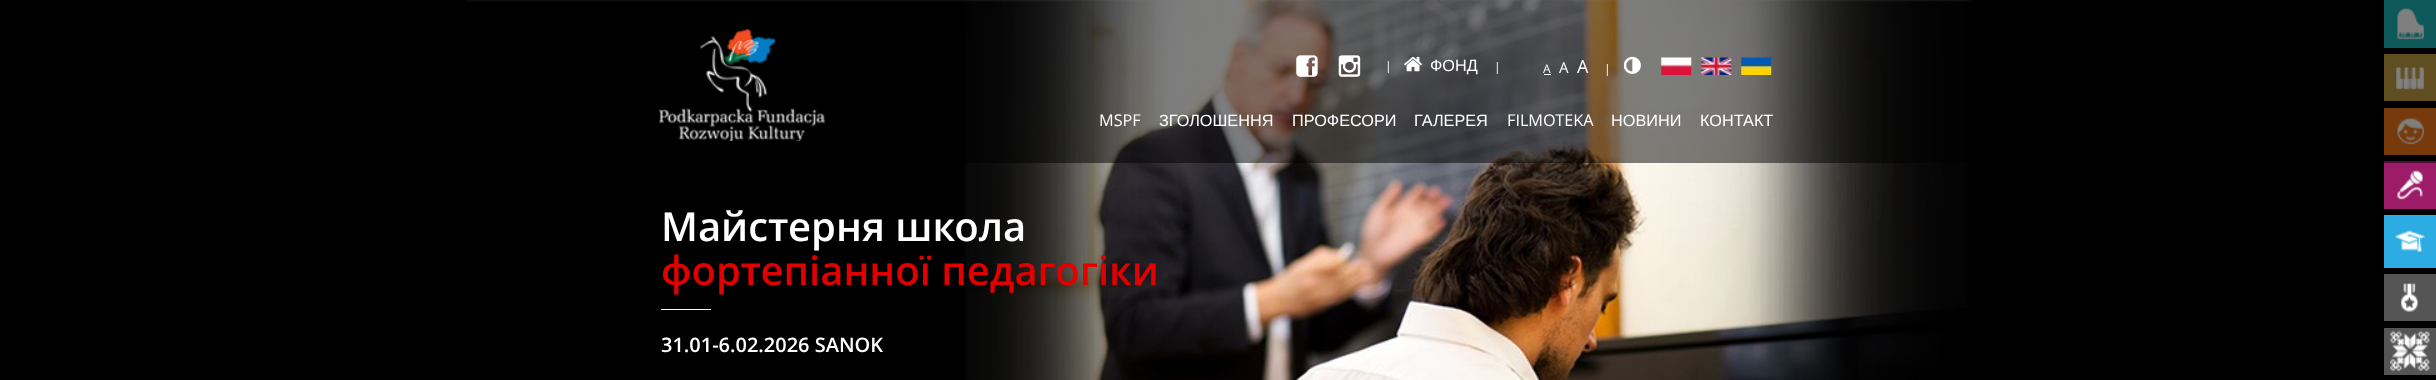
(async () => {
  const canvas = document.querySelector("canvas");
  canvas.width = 2436;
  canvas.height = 380;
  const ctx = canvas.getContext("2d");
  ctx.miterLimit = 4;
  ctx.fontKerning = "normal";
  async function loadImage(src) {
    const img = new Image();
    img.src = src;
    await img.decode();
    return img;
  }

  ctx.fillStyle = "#000000";
  ctx.fillRect(0, 0, 2436, 380);
  ctx.drawImage(await loadImage("img/9.png"), 466, 0, 1506, 380);
  ctx.fillStyle = "#1bb1b0";
  ctx.fillRect(2384, 0, 52, 48);
  ctx.drawImage(await loadImage("img/10.png"), 2397, 8, 27, 32);
  ctx.fillStyle = "#c29c41";
  ctx.fillRect(2384, 54, 52, 47);
  ctx.drawImage(await loadImage("img/11.png"), 2396, 66, 28, 24);
  ctx.fillStyle = "#ef751b";
  ctx.fillRect(2384, 108, 52, 47);
  ctx.drawImage(await loadImage("img/12.png"), 2397, 118, 27, 27);
  ctx.fillStyle = "#9c1c6a";
  ctx.fillRect(2384, 161, 52, 48);
  ctx.fillStyle = "rgba(0, 0, 0, 0.5)";
  ctx.fillRect(466, 0, 1970, 163);
  ctx.drawImage(await loadImage("img/1.png"), 659, 28, 166, 114);
  ctx.drawImage(await loadImage("img/2.png"), 1296, 55, 22, 22);
  ctx.drawImage(await loadImage("img/3.png"), 1338, 55, 23, 22);
  ctx.drawImage(await loadImage("img/4.png"), 1404, 56, 18, 16);
  ctx.fillStyle = "#ffffff";
  ctx.fillRect(1544, 74, 7, 1);
  ctx.drawImage(await loadImage("img/5.png"), 1624, 56, 17, 18);
  ctx.drawImage(await loadImage("img/6.png"), 1661, 57, 31, 18);
  ctx.drawImage(await loadImage("img/7.png"), 1701, 57, 31, 18);
  ctx.drawImage(await loadImage("img/8.png"), 1741, 57, 31, 18);
  ctx.fillRect(661, 309, 50, 1);
  ctx.drawImage(await loadImage("img/13.png"), 2397, 170, 26, 30);
  ctx.fillStyle = "#2cace3";
  ctx.fillRect(2384, 215, 52, 53);
  ctx.drawImage(await loadImage("img/14.png"), 2395, 230, 31, 22);
  ctx.fillStyle = "#555555";
  ctx.fillRect(2384, 274, 52, 47);
  ctx.drawImage(await loadImage("img/15.png"), 2401, 283, 17, 29);
  ctx.fillRect(2384, 328, 52, 47);
  ctx.drawImage(await loadImage("img/16.png"), 2390, 330, 40, 42);
  ctx.font = "12px Open Sans";
  ctx.fillStyle = "#ffffff";
  ctx.fillText("|", 1385, 70);
  ctx.font = "16.25px Liberation Sans";
  ctx.fillText("ФОНД", 1430, 71);
  ctx.font = "12px Open Sans";
  ctx.fillText("|", 1494, 71);
  ctx.fillText("A", 1543, 73);
  ctx.font = "15px Open Sans";
  ctx.fillText("A", 1559, 73);
  ctx.font = "18px Open Sans";
  ctx.fillText("A", 1577, 73);
  ctx.font = "12px Open Sans";
  ctx.fillText("|", 1604, 73);
  ctx.font = "16.25px Open Sans";
  ctx.fillText("MSPF", 1099, 126);
  ctx.font = "16.25px Liberation Sans";
  for (const [text, x, y] of [
    ["ЗГОЛОШЕННЯ", 1159, 126],
    ["ПРОФЕСОРИ", 1292, 126],
    ["ГАЛЕРЕЯ", 1414, 126],
  ]) {
    ctx.fillText(text, x, y);
  }
  ctx.font = "16.25px Open Sans";
  ctx.fillText("FILMOTEKA", 1507, 126);
  ctx.font = "16.25px Liberation Sans";
  ctx.fillText("НОВИНИ", 1611, 126);
  ctx.fillText("КОНТАКТ", 1700, 126);
  ctx.font = "600 40px Open Sans";
  ctx.fillText("Майстерня школа", 661, 241);
  ctx.fillStyle = "#e00000";
  ctx.fillText("фортепіанної педагогіки", 661, 285);
  ctx.font = "600 20px Open Sans";
  ctx.fillStyle = "#ffffff";
  ctx.fillText("31.01-6.02.2026 SANOK", 661, 352);
})();
